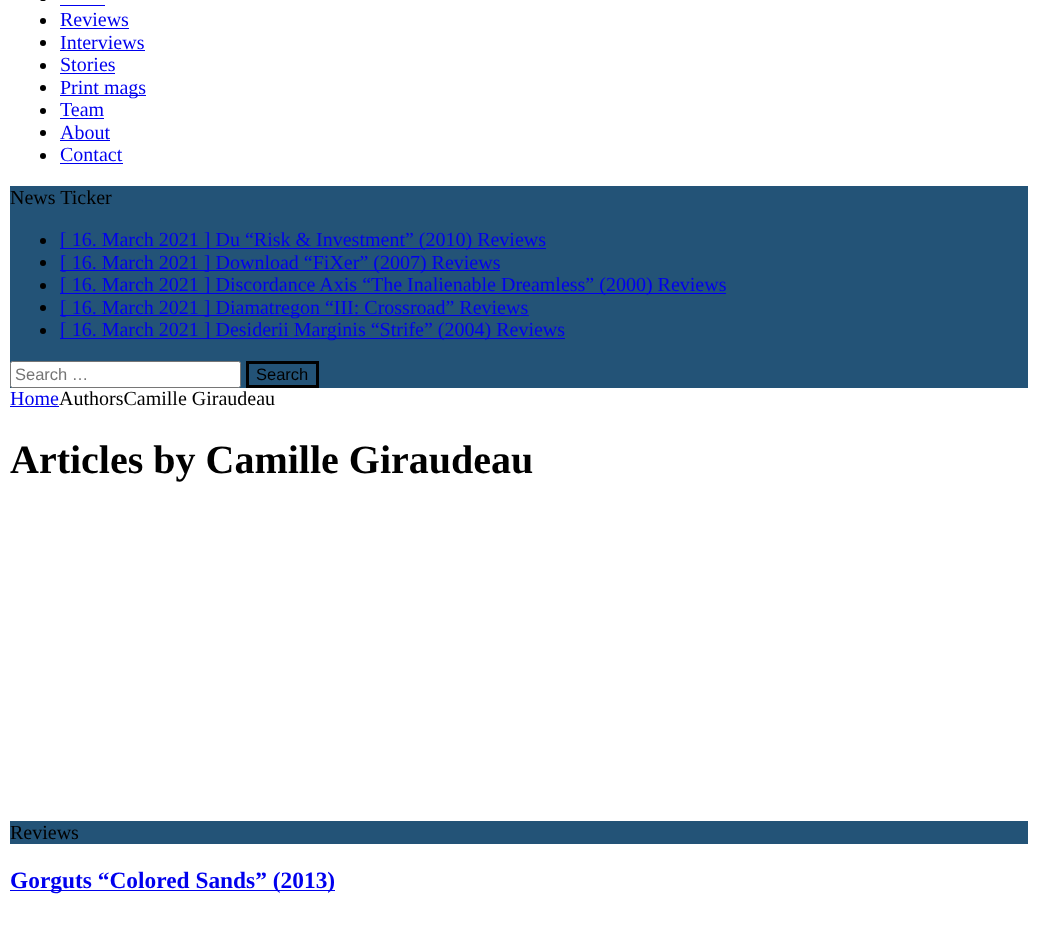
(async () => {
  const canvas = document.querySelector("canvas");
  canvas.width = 1037;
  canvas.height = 929;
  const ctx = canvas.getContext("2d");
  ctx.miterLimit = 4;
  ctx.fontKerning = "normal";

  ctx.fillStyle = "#ffffff";
  ctx.fillRect(0, 0, 1037, 929);
  ctx.fillStyle = "#000000";
  ctx.beginPath();
  ctx.roundRect(40, -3, 6, 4, 3);
  ctx.fill();
  ctx.fillStyle = "#0000ee";
  ctx.fillRect(60, 5, 45, 1);
  ctx.fillStyle = "#000000";
  ctx.beginPath();
  ctx.arc(43, 21, 3, 0, Math.PI * 2);
  ctx.fill();
  ctx.fillStyle = "#0000ee";
  ctx.fillRect(60, 28, 69, 1);
  ctx.fillStyle = "#000000";
  ctx.beginPath();
  ctx.arc(43, 43, 3, 0, Math.PI * 2);
  ctx.fill();
  ctx.fillStyle = "#0000ee";
  ctx.fillRect(60, 50, 85, 1);
  ctx.fillStyle = "#000000";
  ctx.beginPath();
  ctx.arc(43, 66, 3, 0, Math.PI * 2);
  ctx.fill();
  ctx.fillStyle = "#0000ee";
  ctx.fillRect(60, 73, 55, 1);
  ctx.fillStyle = "#000000";
  ctx.beginPath();
  ctx.arc(43, 88, 3, 0, Math.PI * 2);
  ctx.fill();
  ctx.fillStyle = "#0000ee";
  ctx.fillRect(60, 95, 86, 1);
  ctx.fillStyle = "#000000";
  ctx.beginPath();
  ctx.arc(43, 111, 3, 0, Math.PI * 2);
  ctx.fill();
  ctx.fillStyle = "#0000ee";
  ctx.fillRect(60, 118, 44, 1);
  ctx.fillStyle = "#000000";
  ctx.beginPath();
  ctx.arc(43, 133, 3, 0, Math.PI * 2);
  ctx.fill();
  ctx.fillStyle = "#0000ee";
  ctx.fillRect(60, 140, 50, 1);
  ctx.fillStyle = "#000000";
  ctx.beginPath();
  ctx.arc(43, 156, 3, 0, Math.PI * 2);
  ctx.fill();
  ctx.fillStyle = "#0000ee";
  ctx.fillRect(60, 163, 63, 1);
  ctx.fillStyle = "#235377";
  ctx.fillRect(10, 186, 1018, 202);
  ctx.fillStyle = "#000000";
  ctx.beginPath();
  ctx.arc(43, 241, 3, 0, Math.PI * 2);
  ctx.fill();
  ctx.fillStyle = "#0000ee";
  ctx.fillRect(60, 248, 486, 1);
  ctx.fillStyle = "#000000";
  ctx.beginPath();
  ctx.arc(43, 263, 3, 0, Math.PI * 2);
  ctx.fill();
  ctx.fillStyle = "#0000ee";
  ctx.fillRect(60, 270, 440, 1);
  ctx.fillStyle = "#000000";
  ctx.beginPath();
  ctx.arc(43, 286, 3, 0, Math.PI * 2);
  ctx.fill();
  ctx.fillStyle = "#0000ee";
  ctx.fillRect(60, 293, 666, 1);
  ctx.fillStyle = "#000000";
  ctx.beginPath();
  ctx.arc(43, 308, 3, 0, Math.PI * 2);
  ctx.fill();
  ctx.fillStyle = "#0000ee";
  ctx.fillRect(60, 315, 469, 1);
  ctx.fillStyle = "#000000";
  ctx.beginPath();
  ctx.arc(43, 331, 3, 0, Math.PI * 2);
  ctx.fill();
  ctx.fillStyle = "#0000ee";
  ctx.fillRect(60, 338, 505, 1);
  ctx.fillStyle = "#ffffff";
  ctx.beginPath();
  ctx.roundRect(10.5, 361.5, 230, 26, 2);
  ctx.fill();
  ctx.strokeStyle = "#767676";
  ctx.stroke();
  ctx.strokeStyle = "#000000";
  ctx.lineWidth = 3;
  ctx.strokeRect(247.5, 362.5, 70, 24);
  for (const [x, y, w, h, color] of [
    [10, 406, 49, 1, "#0000ee"],
    [10, 821, 1018, 23, "#235377"],
    [10, 890, 325, 1, "#0000ee"],
  ]) {
    ctx.fillStyle = color;
    ctx.fillRect(x, y, w, h);
  }
  ctx.font = "20px Liberation Serif";
  for (const [text, x, y] of [
    ["Reviews", 60, 26],
    ["Interviews", 60, 49],
    ["Stories", 60, 71],
    ["Print mags", 60, 94],
    ["Team", 60, 116],
    ["About", 60, 139],
    ["Contact", 60, 161],
  ]) {
    ctx.fillText(text, x, y);
  }
  ctx.fillStyle = "#000000";
  ctx.fillText("News Ticker", 10, 204);
  ctx.fillStyle = "#0000ee";
  for (const [text, x, y] of [
    ["[ 16. March 2021 ] Du “Risk & Investment” (2010) Reviews", 60, 246],
    ["[ 16. March 2021 ] Download “FiXer” (2007) Reviews", 60, 269],
    ["[ 16. March 2021 ] Discordance Axis “The Inalienable Dreamless” (2000) Reviews", 60, 291],
    ["[ 16. March 2021 ] Diamatregon “III: Crossroad” Reviews", 60, 314],
    ["[ 16. March 2021 ] Desiderii Marginis “Strife” (2004) Reviews", 60, 336],
  ]) {
    ctx.fillText(text, x, y);
  }
  ctx.font = "16.5px Liberation Sans";
  ctx.fillStyle = "#757575";
  ctx.fillText("Search …", 15, 380);
  ctx.fillStyle = "#000000";
  ctx.fillText("Search", 256, 380);
  ctx.font = "20px Liberation Serif";
  ctx.fillStyle = "#0000ee";
  ctx.fillText("Home", 10, 405);
  ctx.fillStyle = "#000000";
  ctx.fillText("AuthorsCamille Giraudeau", 59, 405);
  ctx.font = "bold 40px Liberation Serif";
  ctx.fillText("Articles by Camille Giraudeau", 10, 473);
  ctx.font = "20px Liberation Serif";
  ctx.fillText("Reviews", 10, 839);
  ctx.font = "bold 23.4px Liberation Serif";
  ctx.fillStyle = "#0000ee";
  ctx.fillText("Gorguts “Colored Sands” (2013)", 10, 888);
})();
